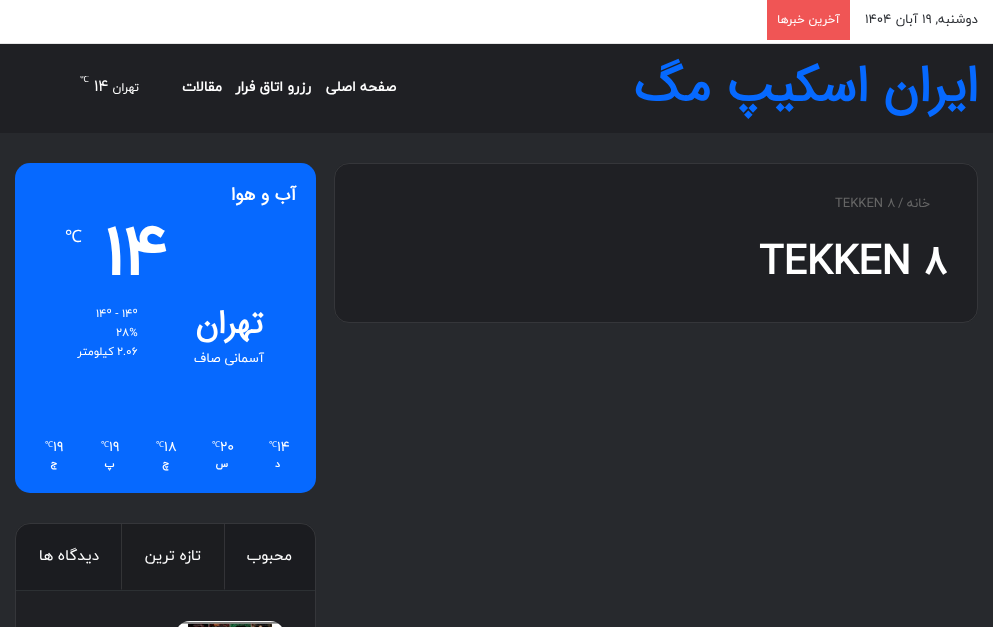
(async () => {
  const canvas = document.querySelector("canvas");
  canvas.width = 993;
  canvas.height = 627;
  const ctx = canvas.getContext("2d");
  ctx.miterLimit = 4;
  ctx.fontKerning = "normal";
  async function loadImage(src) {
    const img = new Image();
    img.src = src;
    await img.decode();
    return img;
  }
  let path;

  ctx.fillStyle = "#27292d";
  ctx.fillRect(0, 0, 993, 627);
  for (const [x, y, w, h, color] of [
    [0, 0, 993, 43, "#ffffff"],
    [0, 43, 993, 1, "#e6e6e6"],
    [767, 0, 83, 40, "#f05555"],
    [0, 44, 993, 89, "#1f2024"],
  ]) {
    ctx.fillStyle = color;
    ctx.fillRect(x, y, w, h);
  }
  ctx.beginPath();
  ctx.roundRect(334, 163, 644, 160, 15);
  ctx.fill();
  ctx.beginPath();
  ctx.roundRect(334.5, 163.5, 643, 159, 14.5);
  ctx.strokeStyle = "rgba(255, 255, 255, 0.1)";
  ctx.stroke();
  ctx.fillStyle = "#0669ff";
  ctx.beginPath();
  ctx.roundRect(15, 163, 301, 330, 15);
  ctx.fill();
  ctx.fillStyle = "#1f2024";
  ctx.beginPath();
  ctx.roundRect(15, 523, 301, 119, 15);
  ctx.fill();
  ctx.beginPath();
  ctx.roundRect(15.5, 523.5, 300, 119, 14.5);
  ctx.stroke();
  ctx.fillStyle = "#2c3033";
  ctx.fillRect(16, 590, 299, 1);
  ctx.fillStyle = "rgba(0, 0, 0, 0.1)";
  ctx.beginPath();
  ctx.roundRect(224, 524, 91, 66, [0, 15, 0, 0]);
  ctx.fill();
  ctx.fillStyle = "#333337";
  path = new Path2D("M224 524H225V589L224 590Z");
  ctx.fill(path);
  ctx.fillStyle = "#1c1d20";
  ctx.fillRect(121, 524, 103, 66);
  ctx.fillStyle = "#333436";
  path = new Path2D("M121 590V524H122V589Z");
  ctx.fill(path);
  ctx.fillStyle = "rgba(0, 0, 0, 0.1)";
  ctx.beginPath();
  ctx.roundRect(16, 524, 105, 66, [15, 0, 0, 0]);
  ctx.fill();
  ctx.drawImage(await loadImage("img/1.png"), 178, 621, 104, 6);
  ctx.direction = "rtl";
  ctx.font = "13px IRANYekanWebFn";
  ctx.fillStyle = "#2c2f34";
  ctx.fillText("دوشنبه,", 978, 23);
  ctx.direction = "ltr";
  ctx.fillText("19", 922, 23);
  ctx.direction = "rtl";
  ctx.fillText("آبان", 918, 23);
  ctx.direction = "ltr";
  ctx.fillText("1404", 865, 23);
  ctx.direction = "rtl";
  ctx.font = "12px IRANYekanWebFn";
  ctx.fillStyle = "#ffffff";
  ctx.fillText("آخرین خبرها", 840, 23);
  ctx.font = "bold 50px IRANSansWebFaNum";
  ctx.fillStyle = "#0669ff";
  ctx.fillText("ایران اسکیپ مگ", 978, 101);
  ctx.font = "bold 14px IRANYekanWebFn";
  ctx.fillStyle = "#ffffff";
  for (const [text, x, y] of [
    ["صفحه اصلی", 396, 91],
    ["رزرو اتاق فرار", 311, 91],
    ["مقالات", 222, 91],
  ]) {
    ctx.fillText(text, x, y);
  }
  ctx.font = "12px IRANYekanWebFn";
  ctx.fillText("تهران", 139, 91);
  ctx.direction = "ltr";
  ctx.font = "16px IRANYekanWebFn";
  ctx.fillText("14", 94, 91);
  ctx.save();
  ctx.beginPath();
  ctx.rect(75, 76, 100, 24);
  ctx.clip();
  ctx.font = "9px Noto Sans";
  ctx.fillText("℃", 80, 82);
  ctx.restore();
  ctx.direction = "rtl";
  ctx.font = "13px IRANYekanWebFn";
  ctx.fillStyle = "#666666";
  ctx.fillText("خانه", 930, 207);
  ctx.direction = "ltr";
  ctx.fillText("/", 898, 207);
  ctx.fillText("TEKKEN 8", 835, 207);
  ctx.font = "bold 41px IRANSansWebFaNum";
  ctx.fillStyle = "#ffffff";
  ctx.fillText("TEKKEN 8", 759, 274);
  ctx.direction = "rtl";
  ctx.font = "bold 18px IRANSansWebFaNum";
  ctx.fillText("آب و هوا", 296, 200);
  ctx.font = "bold 32px IRANSansWebFaNum";
  ctx.fillText("تهران", 263, 333);
  ctx.font = "13px IRANYekanWebFn";
  ctx.fillText("آسمانی صاف", 264, 362);
  ctx.direction = "ltr";
  ctx.font = "bold 70px IRANYekanWebFn";
  ctx.fillText("14", 104, 275);
  ctx.font = "17px Noto Sans";
  ctx.fillText("℃", 65, 242);
  ctx.font = "11.5px IRANYekanWebFn";
  for (const [text, x, y] of [
    ["14º - 14º", 96, 317],
    ["28%", 116, 336],
    ["2.06", 117, 355],
  ]) {
    ctx.fillText(text, x, y);
  }
  ctx.direction = "rtl";
  ctx.fillText("کیلومتر", 114, 355);
  ctx.direction = "ltr";
  ctx.font = "14px IRANYekanWebFn";
  ctx.fillText("14", 277, 451);
  ctx.font = "8px Noto Sans";
  ctx.fillText("℃", 269, 447);
  ctx.direction = "rtl";
  ctx.font = "bold 10px IRANYekanWebFn";
  ctx.fillText("د", 280, 467);
  ctx.direction = "ltr";
  ctx.font = "14px IRANYekanWebFn";
  ctx.fillText("20", 220, 451);
  ctx.font = "8px Noto Sans";
  ctx.fillText("℃", 212, 447);
  ctx.direction = "rtl";
  ctx.font = "bold 10px IRANYekanWebFn";
  ctx.fillText("س", 228, 467);
  ctx.direction = "ltr";
  ctx.font = "14px IRANYekanWebFn";
  ctx.fillText("18", 164, 451);
  ctx.font = "8px Noto Sans";
  ctx.fillText("℃", 156, 447);
  ctx.direction = "rtl";
  ctx.font = "bold 10px IRANYekanWebFn";
  ctx.fillText("چ", 169, 467);
  ctx.direction = "ltr";
  ctx.font = "14px IRANYekanWebFn";
  ctx.fillText("19", 109, 451);
  ctx.font = "8px Noto Sans";
  ctx.fillText("℃", 101, 447);
  ctx.direction = "rtl";
  ctx.font = "bold 10px IRANYekanWebFn";
  ctx.fillText("پ", 114, 467);
  ctx.direction = "ltr";
  ctx.font = "14px IRANYekanWebFn";
  ctx.fillText("19", 53, 451);
  ctx.font = "8px Noto Sans";
  ctx.fillText("℃", 45, 447);
  ctx.direction = "rtl";
  ctx.font = "bold 10px IRANYekanWebFn";
  ctx.fillText("ج", 57, 467);
  ctx.font = "15px IRANYekanWebFn";
  for (const [text, x, y] of [
    ["محبوب", 292, 560],
    ["تازه ترین", 201, 560],
    ["دیدگاه ها", 99, 560],
  ]) {
    ctx.fillText(text, x, y);
  }
})();
